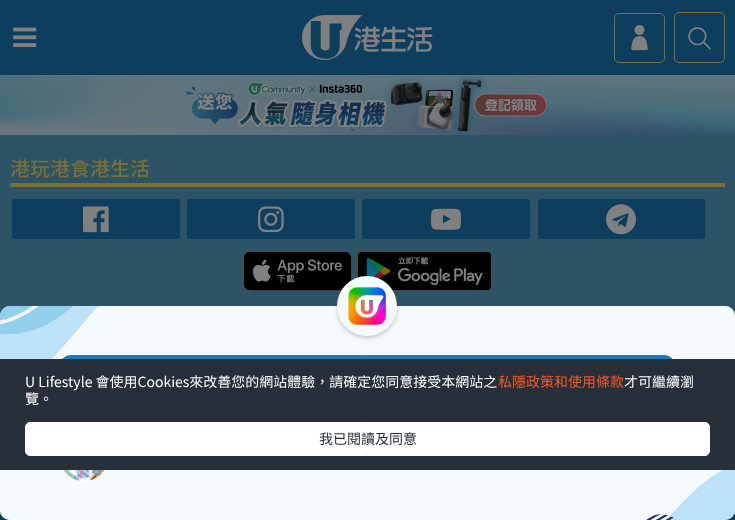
(async () => {
  const canvas = document.querySelector("canvas");
  canvas.width = 735;
  canvas.height = 520;
  const ctx = canvas.getContext("2d");
  ctx.miterLimit = 4;
  ctx.fontKerning = "normal";
  async function loadImage(src) {
    const img = new Image();
    img.src = src;
    await img.decode();
    return img;
  }

  ctx.fillStyle = "#2d5366";
  ctx.fillRect(0, 0, 735, 520);
  ctx.fillStyle = "#0d3e5e";
  ctx.fillRect(0, 0, 735, 75);
  ctx.drawImage(await loadImage("img/1.png"), 13, 27, 24, 20);
  ctx.drawImage(await loadImage("img/2.png"), 302, 15, 131, 45);
  ctx.beginPath();
  ctx.roundRect(614.5, 13.5, 50, 49, 4.5);
  ctx.strokeStyle = "#7b7032";
  ctx.stroke();
  ctx.drawImage(await loadImage("img/3.png"), 631, 25, 17, 26);
  ctx.beginPath();
  ctx.roundRect(674.5, 12.5, 50, 50, 4.5);
  ctx.stroke();
  ctx.drawImage(await loadImage("img/4.png"), 688, 27, 23, 23);
  ctx.drawImage(await loadImage("img/5.png"), 0, 75, 735, 60);
  ctx.fillStyle = "#7b7032";
  ctx.fillRect(10, 183, 715, 4);
  ctx.fillStyle = "#0d3e5e";
  ctx.beginPath();
  ctx.roundRect(12, 199, 168, 40, 3);
  ctx.fill();
  ctx.drawImage(await loadImage("img/6.png"), 83, 206, 26, 27);
  ctx.beginPath();
  ctx.roundRect(187, 199, 168, 40, 3);
  ctx.fill();
  ctx.drawImage(await loadImage("img/7.png"), 258, 206, 26, 27);
  ctx.beginPath();
  ctx.roundRect(362, 199, 168, 40, 3);
  ctx.fill();
  ctx.drawImage(await loadImage("img/8.png"), 431, 208, 30, 22);
  ctx.beginPath();
  ctx.roundRect(538, 199, 167, 40, 3);
  ctx.fill();
  ctx.drawImage(await loadImage("img/9.png"), 606, 204, 30, 31);
  ctx.drawImage(await loadImage("img/10.png"), 243, 251, 109, 40);
  ctx.drawImage(await loadImage("img/11.png"), 357, 251, 135, 40);
  ctx.fillRect(0, 510, 735, 10);
  ctx.fillStyle = "#f4fafd";
  ctx.beginPath();
  ctx.roundRect(0, 306, 735, 214, 10);
  ctx.fill();
  ctx.drawImage(await loadImage("img/12.png"), 0, 306, 735, 214);
  ctx.fillStyle = "rgba(0, 0, 0, 0.2)";
  ctx.filter = "blur(2px)";
  ctx.beginPath();
  ctx.roundRect(337, 278, 60, 60, 30);
  ctx.fill();
  ctx.filter = "none";
  ctx.fillStyle = "#f4fafd";
  ctx.beginPath();
  ctx.arc(367, 306, 30, 0, Math.PI * 2);
  ctx.fill();
  ctx.drawImage(await loadImage("img/13.png"), 348, 287, 38, 38);
  ctx.fillStyle = "#197cbc";
  ctx.beginPath();
  ctx.roundRect(59.5, 355.5, 616, 41, 11.5);
  ctx.fill();
  ctx.strokeStyle = "#197cbc";
  ctx.stroke();
  ctx.drawImage(await loadImage("img/14.png"), 62, 470, 44, 12);
  ctx.fillStyle = "#262f3a";
  ctx.fillRect(0, 359, 735, 111);
  ctx.fillStyle = "#ffffff";
  ctx.beginPath();
  ctx.roundRect(25.5, 422.5, 684, 33, 4.5);
  ctx.fill();
  ctx.strokeStyle = "#ffffff";
  ctx.stroke();
  ctx.font = "6px Liberation Serif";
  ctx.fillStyle = "#151a1e";
  ctx.fillText("•", 351, 132);
  ctx.fillStyle = "#3e4d59";
  ctx.fillText("•", 371, 132);
  ctx.fillText("•", 391, 132);
  ctx.font = "500 20px Noto Sans TC";
  ctx.fillStyle = "#7b7032";
  ctx.fillText("港玩港食港生活", 10, 176);
  ctx.font = "14px Noto Sans TC";
  ctx.fillStyle = "#ffffff";
  ctx.fillText("U Lifestyle 會使用Cookies來改善您的網站體驗，請確定您同意接受本網站之", 25, 387);
  ctx.fillStyle = "#ff5722";
  ctx.fillText("私隱政策和使用條款", 498, 387);
  ctx.fillStyle = "#ffffff";
  ctx.fillText("才可繼續瀏", 624, 387);
  ctx.fillText("覽。", 25, 404);
  ctx.fillStyle = "#262f3a";
  ctx.fillText("我已閱讀及同意", 319, 444);
})();
